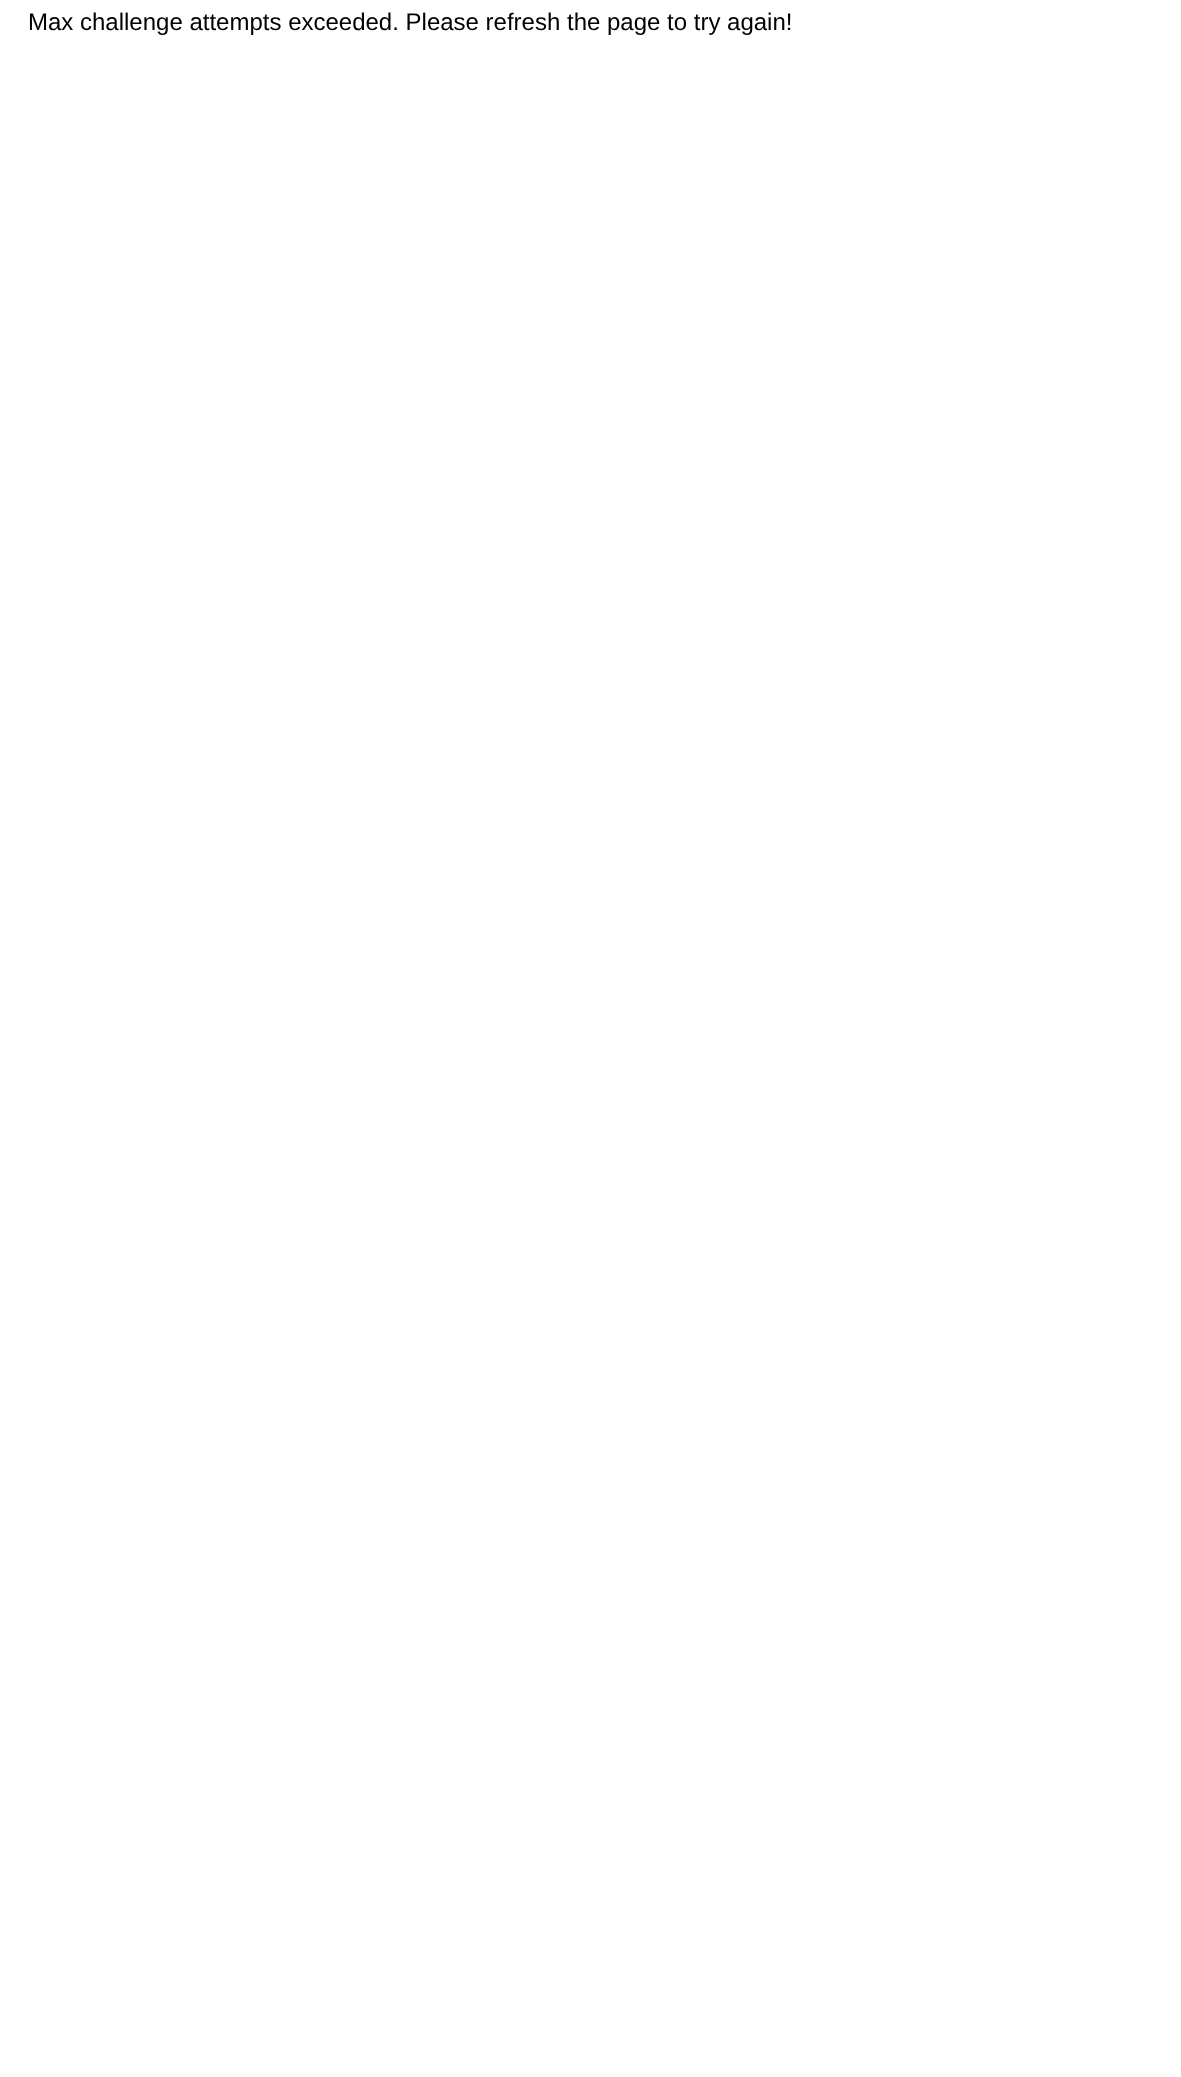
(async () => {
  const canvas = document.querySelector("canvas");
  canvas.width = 1181;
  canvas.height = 2077;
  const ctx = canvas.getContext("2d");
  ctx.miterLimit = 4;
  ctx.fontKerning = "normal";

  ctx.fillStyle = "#ffffff";
  ctx.fillRect(0, 0, 1181, 2077);
  ctx.font = "24px Liberation Sans";
  ctx.fillStyle = "#000000";
  ctx.fillText("Max challenge attempts exceeded. Please refresh the page to try again!", 28, 30);
})();
